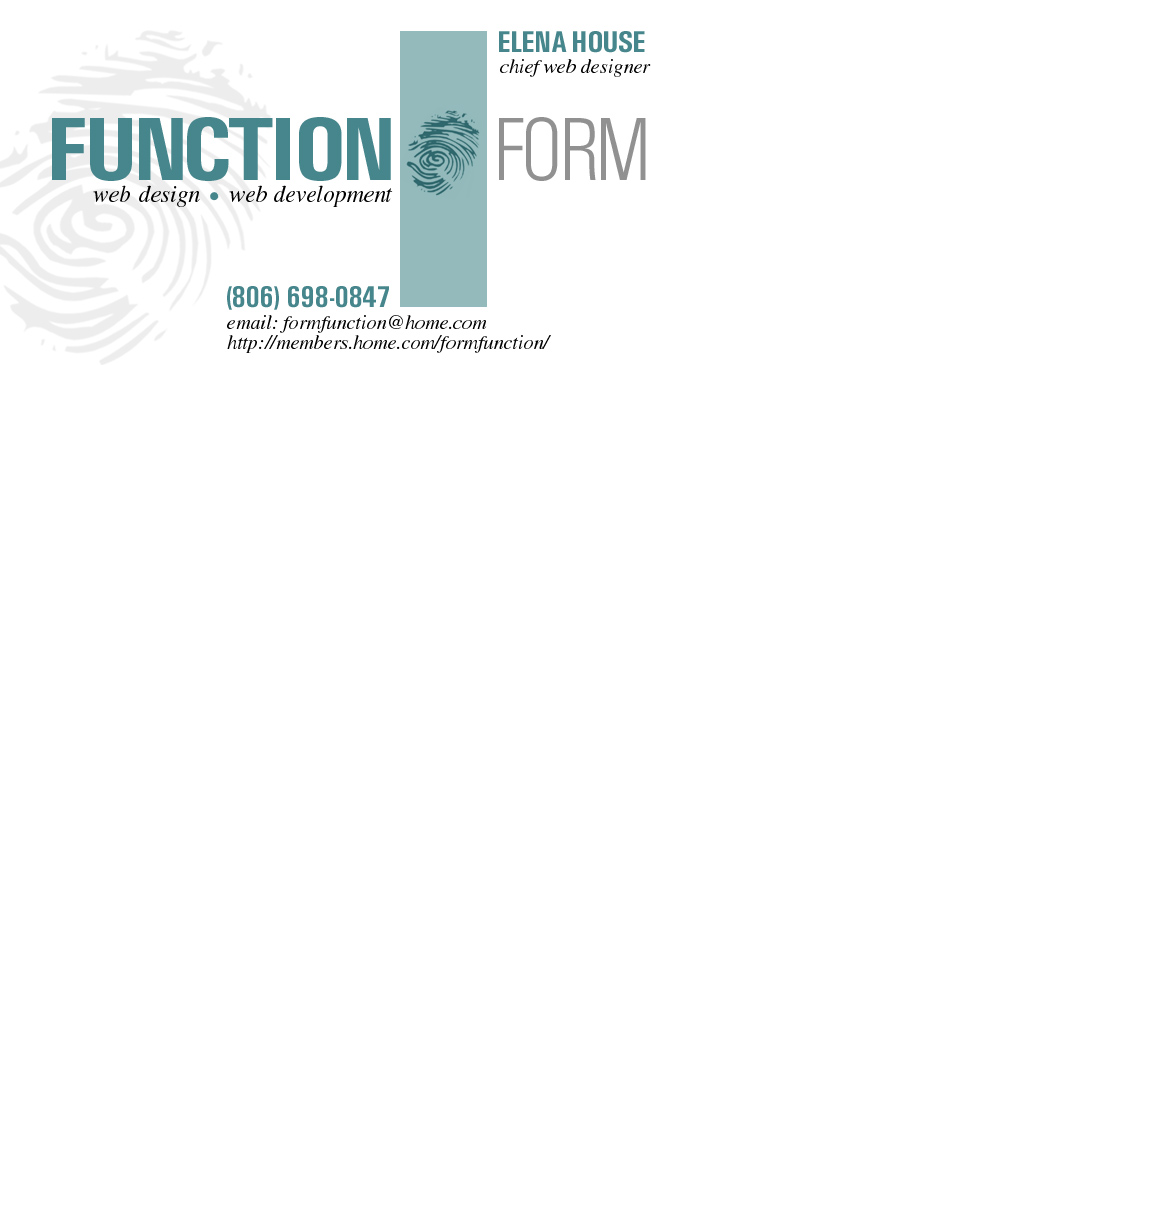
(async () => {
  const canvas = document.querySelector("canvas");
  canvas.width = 1155;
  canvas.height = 1218;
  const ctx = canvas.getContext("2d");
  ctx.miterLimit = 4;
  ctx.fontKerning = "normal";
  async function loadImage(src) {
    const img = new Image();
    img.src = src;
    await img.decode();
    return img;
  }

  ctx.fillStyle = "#ffffff";
  ctx.fillRect(0, 0, 1155, 1218);
  ctx.drawImage(await loadImage("img/1.png"), 0, 24, 651, 341);
})();
